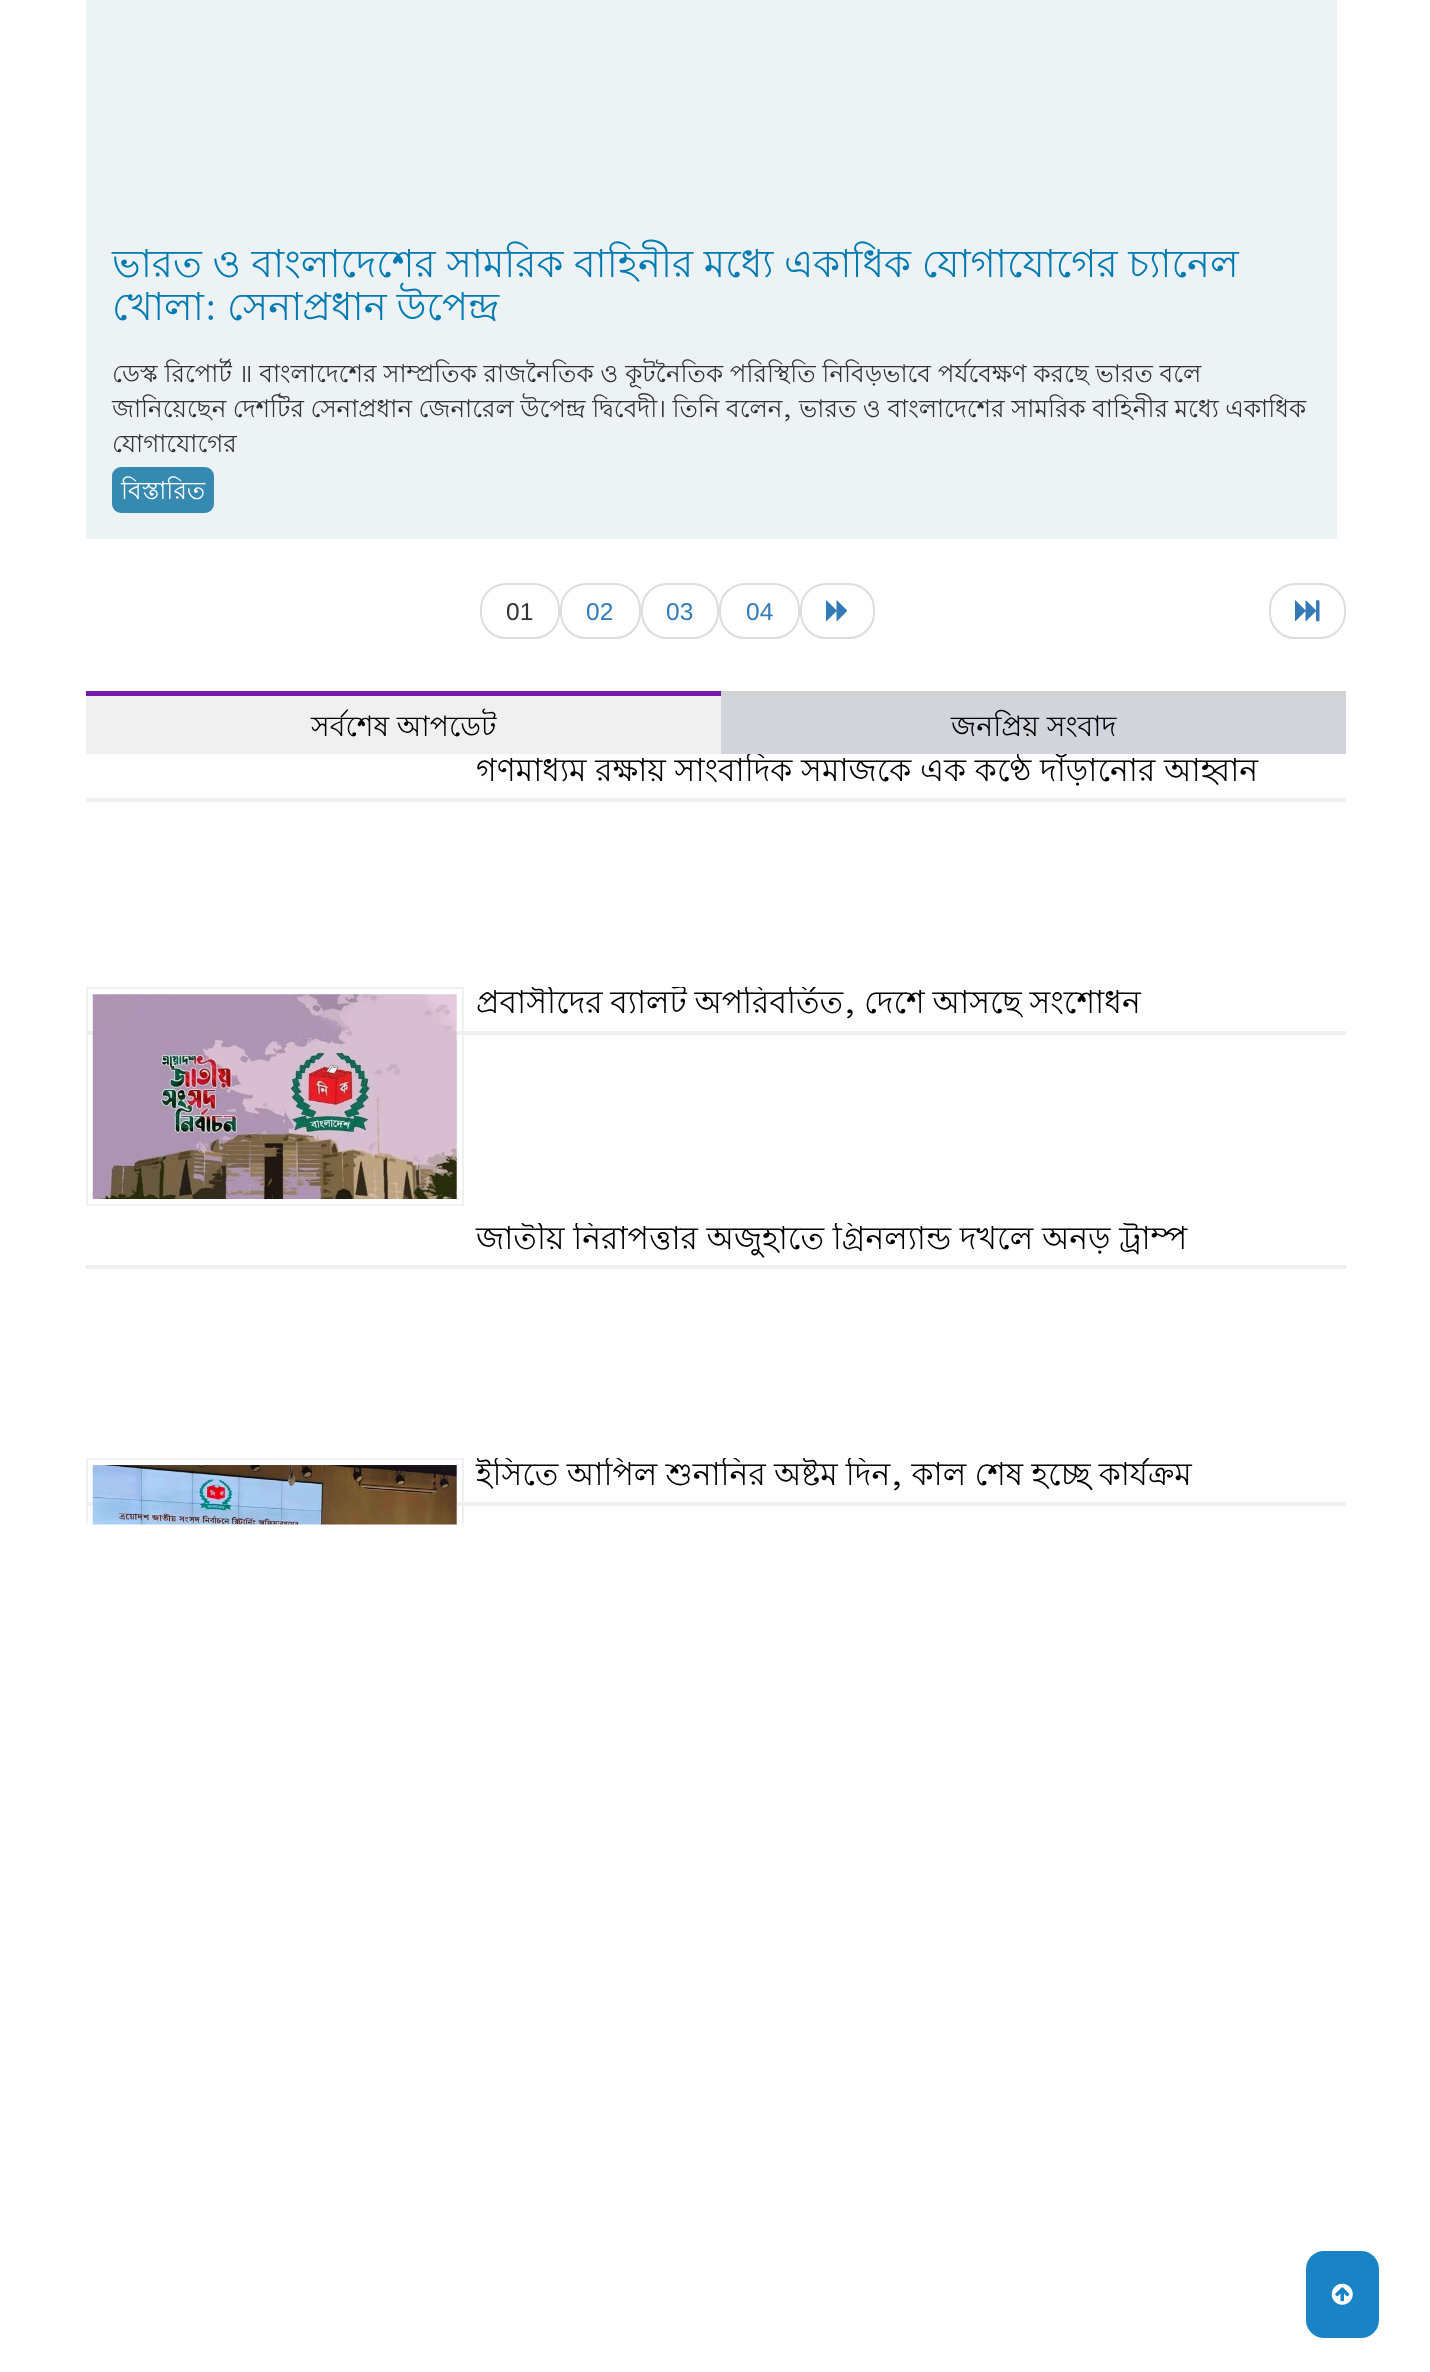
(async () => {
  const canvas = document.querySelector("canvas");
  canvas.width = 1430;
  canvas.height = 2372;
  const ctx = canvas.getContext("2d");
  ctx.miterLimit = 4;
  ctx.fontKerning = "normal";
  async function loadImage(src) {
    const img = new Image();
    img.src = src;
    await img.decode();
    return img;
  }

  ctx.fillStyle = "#ffffff";
  ctx.fillRect(0, 0, 1430, 2372);
  ctx.fillStyle = "#edf3f5";
  ctx.fillRect(86, 0, 1251, 539);
  ctx.fillStyle = "#3689b0";
  ctx.beginPath();
  ctx.roundRect(112, 467, 102, 46, 9);
  ctx.fill();
  ctx.beginPath();
  ctx.roundRect(481, 584, 78, 54, 25);
  ctx.strokeStyle = "#dddddd";
  ctx.lineWidth = 2;
  ctx.stroke();
  ctx.beginPath();
  ctx.roundRect(561, 584, 79, 54, 25);
  ctx.stroke();
  ctx.beginPath();
  ctx.roundRect(642, 584, 76, 54, 25);
  ctx.stroke();
  ctx.beginPath();
  ctx.roundRect(720, 584, 79, 54, 25);
  ctx.stroke();
  ctx.beginPath();
  ctx.roundRect(801, 584, 73, 54, 25);
  ctx.stroke();
  ctx.drawImage(await loadImage("img/1.png"), 826, 600, 21, 22);
  ctx.beginPath();
  ctx.roundRect(1270, 584, 75, 54, 25);
  ctx.stroke();
  ctx.drawImage(await loadImage("img/2.png"), 1295, 600, 25, 22);
  for (const [x, y, w, h, color] of [
    [721, 696, 625, 58, "#d2d5db"],
    [86, 696, 635, 58, "#f0f0f0"],
    [86, 691, 635, 5, "#7719aa"],
    [721, 691, 625, 5, "#d2d2d2"],
    [86, 798, 1260, 4, "#f0f0f0"],
    [86, 1031, 1260, 4, "#f0f0f0"],
  ]) {
    ctx.fillStyle = color;
    ctx.fillRect(x, y, w, h);
  }
  ctx.strokeStyle = "#f0f0f0";
  ctx.strokeRect(87, 988, 376, 217);
  ctx.drawImage(await loadImage("img/3.png"), 92, 994, 365, 205);
  ctx.fillRect(86, 1265, 1260, 4);
  ctx.fillRect(86, 1502, 1260, 4);
  ctx.save();
  ctx.beginPath();
  ctx.rect(86, 1458, 1260, 66);
  ctx.clip();
  ctx.strokeRect(87, 1459, 376, 217);
  ctx.restore();
  ctx.drawImage(await loadImage("img/4.png"), 92, 1465, 365, 60);
  ctx.fillStyle = "#1a83c6";
  ctx.beginPath();
  ctx.roundRect(1306, 2251, 73, 87, 18);
  ctx.fill();
  ctx.drawImage(await loadImage("img/5.png"), 1331, 2283, 22, 22);
  ctx.font = "38.5px Lohit Bengali";
  ctx.fillStyle = "#027ab2";
  ctx.fillText("ভারত ও বাংলাদেশের সামরিক বাহিনীর মধ্যে একাধিক যোগাযোগের চ্যানেল", 112, 277);
  ctx.wordSpacing = "-1px";
  ctx.fillText("খোলা: সেনাপ্রধান উপেন্দ্র", 112, 320);
  ctx.wordSpacing = "0px";
  ctx.font = "24.5px Lohit Bengali";
  ctx.fillStyle = "#333333";
  ctx.fillText("ডেস্ক রিপোর্ট ॥ বাংলাদেশের সাম্প্রতিক রাজনৈতিক ও কূটনৈতিক পরিস্থিতি নিবিড়ভাবে পর্যবেক্ষণ করছে ভারত বলে", 112, 382);
  ctx.wordSpacing = "-0.25px";
  ctx.fillText("জানিয়েছেন দেশটির সেনাপ্রধান জেনারেল উপেন্দ্র দ্বিবেদী। তিনি বলেন, ভারত ও বাংলাদেশের সামরিক বাহিনীর মধ্যে একাধিক", 112, 417);
  ctx.wordSpacing = "0px";
  ctx.fillText("যোগাযোগের", 112, 452);
  ctx.fillStyle = "#ffffff";
  ctx.fillText("বিস্তারিত", 121, 499);
  ctx.font = "24.5px Liberation Sans";
  ctx.fillStyle = "#333333";
  ctx.fillText("01", 506, 620);
  ctx.fillStyle = "#337ab7";
  for (const [text, x, y] of [
    ["02", 586, 620],
    ["03", 666, 620],
    ["04", 746, 620],
  ]) {
    ctx.fillText(text, x, y);
  }
  ctx.font = "28.25px Lohit Bengali";
  ctx.fillStyle = "#000000";
  ctx.fillText("সর্বশেষ আপডেট", 311, 736);
  ctx.fillText("জনপ্রিয় সংবাদ", 951, 736);
  ctx.save();
  ctx.beginPath();
  ctx.rect(86, 754, 1260, 233);
  ctx.clip();
  ctx.font = "31.5px Lohit Bengali";
  ctx.fillText("গণমাধ্যম রক্ষায় সাংবাদিক সমাজকে এক কণ্ঠে দাঁড়ানোর আহ্বান", 476, 781);
  ctx.restore();
  ctx.save();
  ctx.beginPath();
  ctx.rect(86, 987, 1260, 236);
  ctx.clip();
  ctx.wordSpacing = "-1px";
  ctx.font = "31.5px Lohit Bengali";
  ctx.fillText("প্রবাসীদের ব্যালট অপরিবর্তিত, দেশে আসছে সংশোধন", 476, 1013);
  ctx.restore();
  ctx.save();
  ctx.beginPath();
  ctx.rect(86, 1223, 1260, 235);
  ctx.clip();
  ctx.font = "31.5px Lohit Bengali";
  ctx.fillText("জাতীয় নিরাপত্তার অজুহাতে গ্রিনল্যান্ড দখলে অনড় ট্রাম্প", 476, 1249);
  ctx.restore();
  ctx.save();
  ctx.beginPath();
  ctx.rect(86, 1458, 1260, 66);
  ctx.clip();
  ctx.wordSpacing = "-0.5px";
  ctx.font = "31.5px Lohit Bengali";
  ctx.fillText("ইসিতে আপিল শুনানির অষ্টম দিন, কাল শেষ হচ্ছে কার্যক্রম", 476, 1485);
  ctx.restore();
})();
